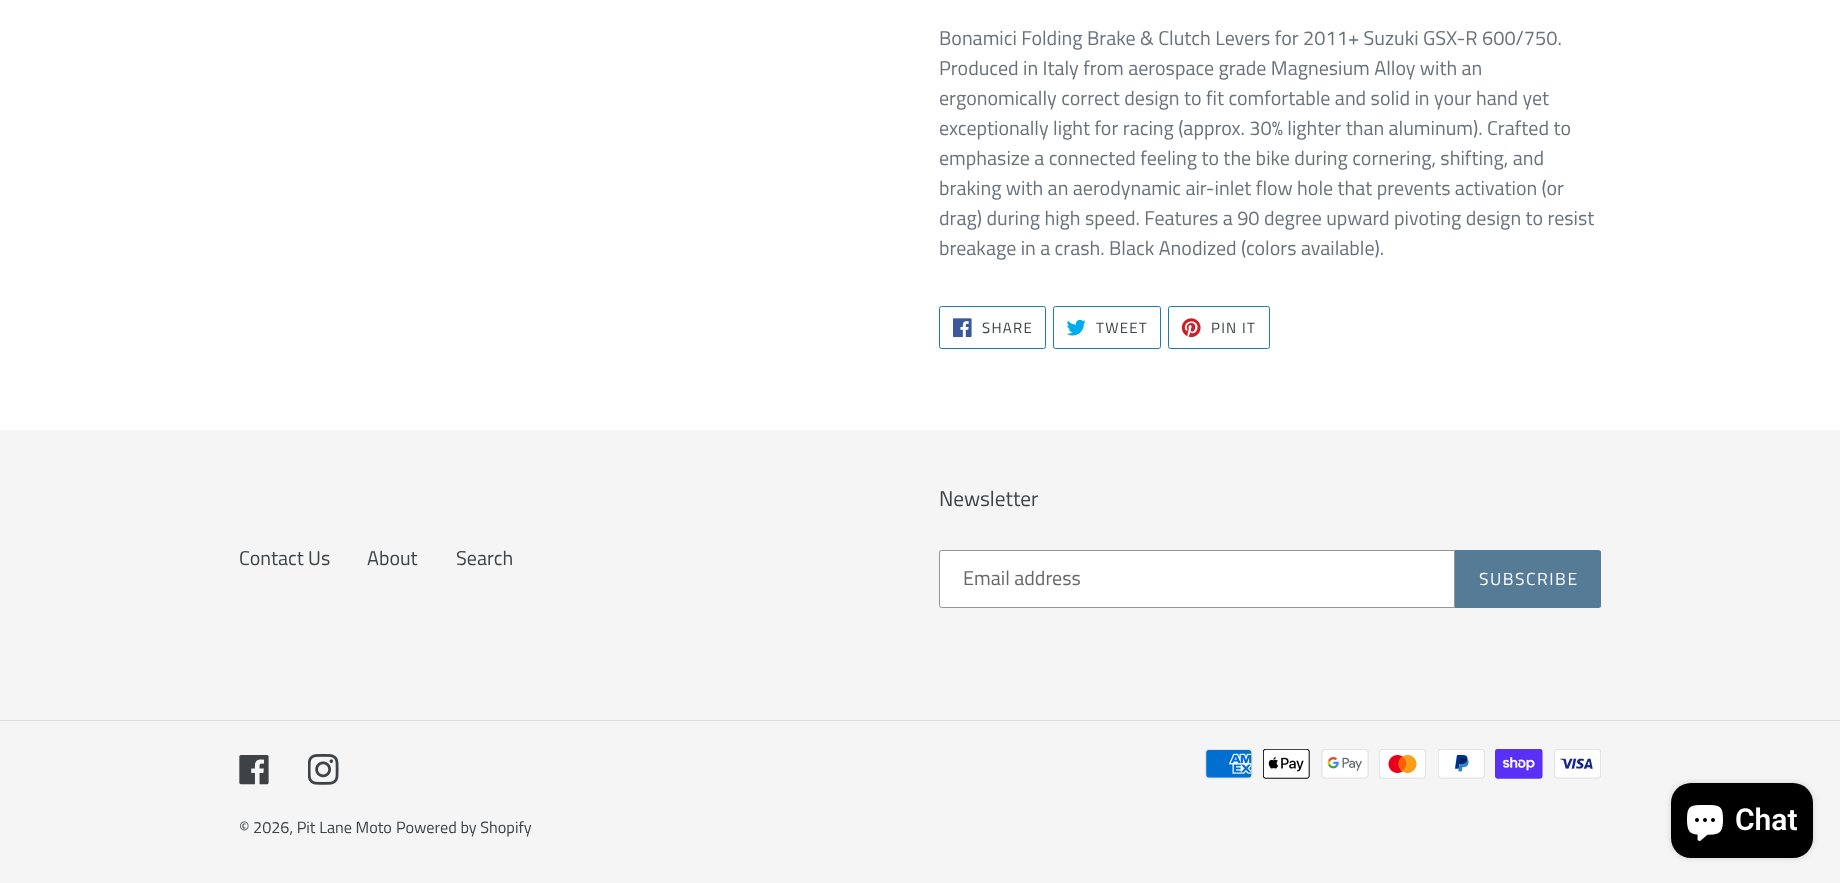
(async () => {
  const canvas = document.querySelector("canvas");
  canvas.width = 1840;
  canvas.height = 883;
  const ctx = canvas.getContext("2d");
  ctx.miterLimit = 4;
  ctx.fontKerning = "normal";
  async function loadImage(src) {
    const img = new Image();
    img.src = src;
    await img.decode();
    return img;
  }

  ctx.fillStyle = "#ffffff";
  ctx.fillRect(0, 0, 1840, 883);
  ctx.beginPath();
  ctx.roundRect(939.5, 306.5, 106, 42, 2);
  ctx.strokeStyle = "#197bbd";
  ctx.stroke();
  ctx.drawImage(await loadImage("img/1.png"), 953, 318, 19, 20);
  ctx.beginPath();
  ctx.roundRect(1053.5, 306.5, 107, 42, 2);
  ctx.stroke();
  ctx.drawImage(await loadImage("img/2.png"), 1066, 319, 20, 17);
  ctx.beginPath();
  ctx.roundRect(1168.5, 306.5, 101, 42, 2);
  ctx.stroke();
  ctx.drawImage(await loadImage("img/3.png"), 1181, 318, 20, 20);
  ctx.fillStyle = "#f5f5f5";
  ctx.fillRect(0, 430, 1840, 453);
  ctx.fillStyle = "#ffffff";
  ctx.beginPath();
  ctx.roundRect(939.5, 550.5, 515, 57, [2, 0, 0, 2]);
  ctx.fill();
  ctx.strokeStyle = "#949494";
  ctx.stroke();
  ctx.fillStyle = "#557b97";
  ctx.beginPath();
  ctx.roundRect(1455, 550, 146, 58, [0, 2.5, 2.5, 0]);
  ctx.fill();
  ctx.fillStyle = "#dcdcdc";
  ctx.fillRect(0, 720, 1840, 1);
  ctx.drawImage(await loadImage("img/4.png"), 239, 755, 30, 30);
  ctx.drawImage(await loadImage("img/5.png"), 308, 754, 31, 31);
  ctx.drawImage(await loadImage("img/6.png"), 1205, 749, 48, 30);
  ctx.drawImage(await loadImage("img/7.png"), 1263, 749, 47, 30);
  ctx.drawImage(await loadImage("img/8.png"), 1321, 749, 48, 30);
  ctx.drawImage(await loadImage("img/9.png"), 1379, 749, 47, 30);
  ctx.drawImage(await loadImage("img/10.png"), 1438, 749, 47, 30);
  ctx.drawImage(await loadImage("img/11.png"), 1495, 749, 48, 30);
  ctx.drawImage(await loadImage("img/12.png"), 1554, 749, 47, 30);
  ctx.fillStyle = "rgba(0, 0, 0, 0.15)";
  ctx.filter = "blur(3px)";
  ctx.beginPath();
  ctx.roundRect(1671, 783, 142, 75, 20);
  ctx.fill();
  ctx.filter = "none";
  ctx.fillStyle = "#000000";
  ctx.beginPath();
  ctx.roundRect(1671, 783, 142, 75, 20);
  ctx.fill();
  ctx.drawImage(await loadImage("img/13.png"), 1687, 805, 36, 36);
  ctx.font = "20px Titillium Web";
  ctx.fillStyle = "#69727b";
  for (const [text, x, y] of [
    ["Bonamici Folding Brake & Clutch Levers for 2011+ Suzuki GSX-R 600/750.", 939, 45],
    ["Produced in Italy from aerospace grade Magnesium Alloy with an", 939, 75],
    ["ergonomically correct design to fit comfortable and solid in your hand yet", 939, 105],
    ["exceptionally light for racing (approx. 30% lighter than aluminum). Crafted to", 939, 135],
    ["emphasize a connected feeling to the bike during cornering, shifting, and", 939, 165],
    ["braking with an aerodynamic air-inlet flow hole that prevents activation (or", 939, 195],
    ["drag) during high speed. Features a 90 degree upward pivoting design to resist", 939, 225],
    ["breakage in a crash. Black Anodized (colors available).", 939, 255],
  ]) {
    ctx.fillText(text, x, y);
  }
  ctx.letterSpacing = "1.25px";
  ctx.font = "15px Titillium Web";
  ctx.fillStyle = "#3d4246";
  for (const [text, x, y] of [
    ["SHARE", 982, 333],
    ["TWEET", 1096, 333],
    ["PIN IT", 1211, 333],
  ]) {
    ctx.fillText(text, x, y);
  }
  ctx.letterSpacing = "0px";
  ctx.font = "20px Titillium Web";
  for (const [text, x, y] of [
    ["Contact Us", 239, 565],
    ["About", 367, 565],
    ["Search", 456, 565],
  ]) {
    ctx.fillText(text, x, y);
  }
  ctx.font = "21.25px Titillium Web";
  ctx.fillText("Newsletter", 939, 506);
  ctx.font = "20px Titillium Web";
  ctx.fillStyle = "#666666";
  ctx.fillText("Email address", 963, 585);
  ctx.letterSpacing = "1.5px";
  ctx.font = "17.5px Titillium Web";
  ctx.fillStyle = "#ffffff";
  ctx.fillText("SUBSCRIBE", 1479, 585);
  ctx.letterSpacing = "0px";
  ctx.font = "16.25px Titillium Web";
  ctx.fillStyle = "#3d4246";
  ctx.fillText("© 2026, Pit Lane Moto", 239, 833);
  ctx.fillText("Powered by Shopify", 396, 833);
  ctx.font = "600 30px Roboto";
  ctx.fillStyle = "#ffffff";
  ctx.fillText("Chat", 1735, 830);
})();
